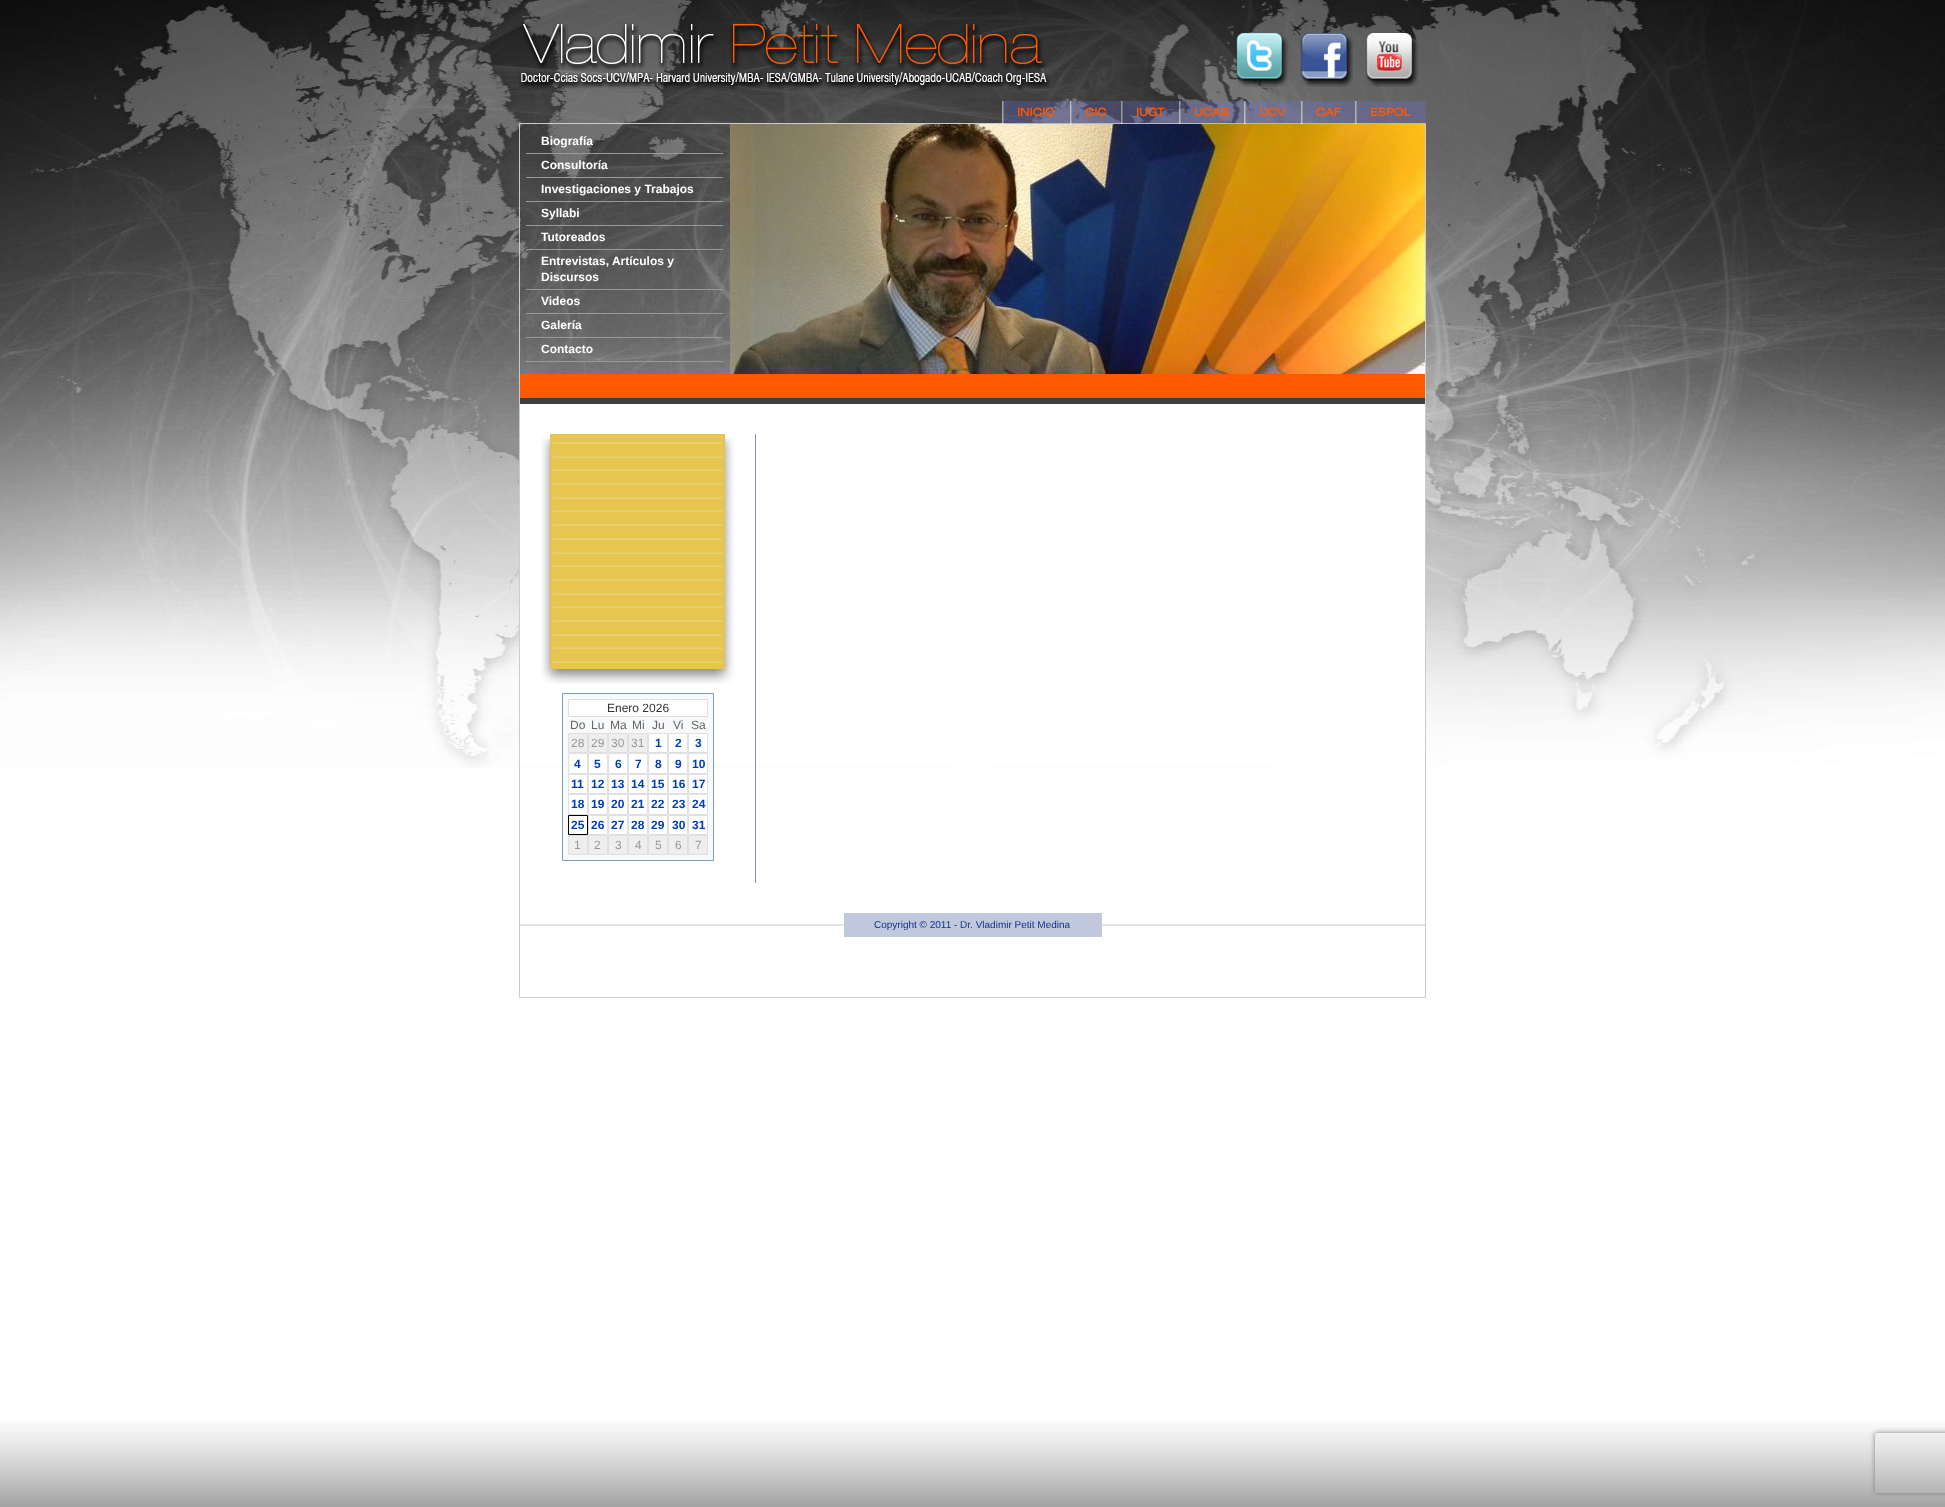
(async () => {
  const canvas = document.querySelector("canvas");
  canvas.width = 1945;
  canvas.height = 1507;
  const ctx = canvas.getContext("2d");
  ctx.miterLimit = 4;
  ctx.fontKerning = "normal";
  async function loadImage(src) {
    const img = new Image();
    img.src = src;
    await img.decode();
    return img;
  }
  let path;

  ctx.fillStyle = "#ffffff";
  ctx.fillRect(0, 0, 1945, 1507);
  ctx.drawImage(await loadImage("img/1.png"), 0, 0, 1945, 768);
  ctx.drawImage(await loadImage("img/2.png"), 0, 1421, 1945, 86);
  ctx.drawImage(await loadImage("img/3.png"), 519, 23, 531, 68);
  ctx.drawImage(await loadImage("img/4.png"), 1235, 33, 54, 54);
  ctx.drawImage(await loadImage("img/5.png"), 1300, 33, 53, 54);
  ctx.drawImage(await loadImage("img/6.png"), 1365, 33, 53, 54);
  ctx.strokeStyle = "#cccccc";
  ctx.strokeRect(519.5, 123.5, 906, 874);
  ctx.drawImage(await loadImage("img/7.png"), 1002, 101, 68, 23);
  ctx.drawImage(await loadImage("img/8.png"), 1070, 101, 51, 23);
  ctx.drawImage(await loadImage("img/9.png"), 1121, 101, 58, 23);
  ctx.drawImage(await loadImage("img/10.png"), 1179, 101, 65, 23);
  ctx.drawImage(await loadImage("img/11.png"), 1244, 101, 57, 23);
  ctx.drawImage(await loadImage("img/12.png"), 1301, 101, 54, 23);
  ctx.drawImage(await loadImage("img/13.png"), 1355, 101, 71, 23);
  for (const [x, y, w, h, color] of [
    [526, 153, 197, 1, "#999999"],
    [526, 177, 197, 1, "#999999"],
    [526, 201, 197, 1, "#999999"],
    [526, 225, 197, 1, "#999999"],
    [526, 249, 197, 1, "#999999"],
    [526, 289, 197, 1, "#999999"],
    [526, 313, 197, 1, "#999999"],
    [526, 337, 197, 1, "#999999"],
    [526, 361, 197, 1, "#999999"],
  ]) {
    ctx.fillStyle = color;
    ctx.fillRect(x, y, w, h);
  }
  ctx.drawImage(await loadImage("img/14.png"), 730, 124, 695, 250);
  for (const [x, y, w, h, color] of [
    [520, 374, 905, 24, "#ff5a00"],
    [520, 398, 905, 6, "#3f3f3f"],
    [520, 404, 905, 360, "#ffffff"],
    [755, 434, 1, 449, "#878faf"],
  ]) {
    ctx.fillStyle = color;
    ctx.fillRect(x, y, w, h);
  }
  ctx.drawImage(await loadImage("img/15.png"), 541, 434, 193, 250);
  ctx.fillStyle = "#f7f9fb";
  ctx.beginPath();
  ctx.rect(562.5, 693.5, 151, 167);
  ctx.fill();
  ctx.strokeStyle = "#7b9ebd";
  ctx.stroke();
  ctx.fillStyle = "#ffffff";
  ctx.beginPath();
  ctx.rect(568.5, 699.5, 139, 17);
  ctx.fill();
  ctx.strokeStyle = "#e0e0e0";
  ctx.stroke();
  ctx.fillStyle = "#eeeeee";
  ctx.beginPath();
  ctx.rect(568.5, 733.5, 19, 19);
  ctx.fill();
  ctx.stroke();
  ctx.beginPath();
  ctx.rect(588.5, 733.5, 19, 19);
  ctx.fill();
  ctx.stroke();
  ctx.beginPath();
  ctx.rect(608.5, 733.5, 19, 19);
  ctx.fill();
  ctx.stroke();
  ctx.beginPath();
  ctx.rect(628.5, 733.5, 19, 19);
  ctx.fill();
  ctx.stroke();
  ctx.fillStyle = "#ffffff";
  ctx.beginPath();
  ctx.rect(648.5, 733.5, 19, 19);
  ctx.fill();
  ctx.stroke();
  ctx.beginPath();
  ctx.rect(668.5, 733.5, 19, 19);
  ctx.fill();
  ctx.stroke();
  ctx.beginPath();
  ctx.rect(688.5, 733.5, 19, 19);
  ctx.fill();
  ctx.stroke();
  ctx.beginPath();
  ctx.rect(568.5, 753.5, 19, 20);
  ctx.fill();
  ctx.stroke();
  ctx.beginPath();
  ctx.rect(588.5, 753.5, 19, 20);
  ctx.fill();
  ctx.stroke();
  ctx.beginPath();
  ctx.rect(608.5, 753.5, 19, 20);
  ctx.fill();
  ctx.stroke();
  ctx.beginPath();
  ctx.rect(628.5, 753.5, 19, 20);
  ctx.fill();
  ctx.stroke();
  ctx.beginPath();
  ctx.rect(648.5, 753.5, 19, 20);
  ctx.fill();
  ctx.stroke();
  ctx.beginPath();
  ctx.rect(668.5, 753.5, 19, 20);
  ctx.fill();
  ctx.stroke();
  ctx.beginPath();
  ctx.rect(688.5, 753.5, 19, 20);
  ctx.fill();
  ctx.stroke();
  ctx.beginPath();
  ctx.rect(568.5, 774.5, 19, 19);
  ctx.fill();
  ctx.stroke();
  ctx.beginPath();
  ctx.rect(588.5, 774.5, 19, 19);
  ctx.fill();
  ctx.stroke();
  ctx.beginPath();
  ctx.rect(608.5, 774.5, 19, 19);
  ctx.fill();
  ctx.stroke();
  ctx.beginPath();
  ctx.rect(628.5, 774.5, 19, 19);
  ctx.fill();
  ctx.stroke();
  ctx.beginPath();
  ctx.rect(648.5, 774.5, 19, 19);
  ctx.fill();
  ctx.stroke();
  ctx.beginPath();
  ctx.rect(668.5, 774.5, 19, 19);
  ctx.fill();
  ctx.stroke();
  ctx.beginPath();
  ctx.rect(688.5, 774.5, 19, 19);
  ctx.fill();
  ctx.stroke();
  ctx.beginPath();
  ctx.rect(568.5, 794.5, 19, 20);
  ctx.fill();
  ctx.stroke();
  ctx.beginPath();
  ctx.rect(588.5, 794.5, 19, 20);
  ctx.fill();
  ctx.stroke();
  ctx.beginPath();
  ctx.rect(608.5, 794.5, 19, 20);
  ctx.fill();
  ctx.stroke();
  ctx.beginPath();
  ctx.rect(628.5, 794.5, 19, 20);
  ctx.fill();
  ctx.stroke();
  ctx.beginPath();
  ctx.rect(648.5, 794.5, 19, 20);
  ctx.fill();
  ctx.stroke();
  ctx.beginPath();
  ctx.rect(668.5, 794.5, 19, 20);
  ctx.fill();
  ctx.stroke();
  ctx.beginPath();
  ctx.rect(688.5, 794.5, 19, 20);
  ctx.fill();
  ctx.stroke();
  ctx.beginPath();
  ctx.rect(568.5, 815.5, 19, 19);
  ctx.fill();
  ctx.strokeStyle = "#000000";
  ctx.stroke();
  ctx.beginPath();
  ctx.rect(588.5, 815.5, 19, 19);
  ctx.fill();
  ctx.strokeStyle = "#e0e0e0";
  ctx.stroke();
  ctx.beginPath();
  ctx.rect(608.5, 815.5, 19, 19);
  ctx.fill();
  ctx.stroke();
  ctx.beginPath();
  ctx.rect(628.5, 815.5, 19, 19);
  ctx.fill();
  ctx.stroke();
  ctx.beginPath();
  ctx.rect(648.5, 815.5, 19, 19);
  ctx.fill();
  ctx.stroke();
  ctx.beginPath();
  ctx.rect(668.5, 815.5, 19, 19);
  ctx.fill();
  ctx.stroke();
  ctx.beginPath();
  ctx.rect(688.5, 815.5, 19, 19);
  ctx.fill();
  ctx.stroke();
  ctx.fillStyle = "#eeeeee";
  ctx.beginPath();
  ctx.rect(568.5, 835.5, 19, 19);
  ctx.fill();
  ctx.stroke();
  ctx.beginPath();
  ctx.rect(588.5, 835.5, 19, 19);
  ctx.fill();
  ctx.stroke();
  ctx.beginPath();
  ctx.rect(608.5, 835.5, 19, 19);
  ctx.fill();
  ctx.stroke();
  ctx.beginPath();
  ctx.rect(628.5, 835.5, 19, 19);
  ctx.fill();
  ctx.stroke();
  ctx.beginPath();
  ctx.rect(648.5, 835.5, 19, 19);
  ctx.fill();
  ctx.stroke();
  ctx.beginPath();
  ctx.rect(668.5, 835.5, 19, 19);
  ctx.fill();
  ctx.stroke();
  ctx.beginPath();
  ctx.rect(688.5, 835.5, 19, 19);
  ctx.fill();
  ctx.stroke();
  ctx.fillStyle = "#dfe4ee";
  ctx.fillRect(520, 924, 905, 2);
  ctx.fillStyle = "#bfc8dd";
  ctx.fillRect(844, 913, 258, 24);
  ctx.save();
  path = new Path2D("M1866 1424H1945V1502H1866ZM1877 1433H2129C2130 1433 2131 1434 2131 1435V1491C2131 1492 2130 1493 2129 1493H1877C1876 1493 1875 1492 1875 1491V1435C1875 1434 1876 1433 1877 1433Z");
  ctx.clip(path, "evenodd");
  ctx.fillStyle = "#808080";
  ctx.filter = "blur(2.5px)";
  ctx.beginPath();
  ctx.roundRect(1875, 1433, 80, 60, 2);
  ctx.fill();
  ctx.filter = "none";
  ctx.restore();
  ctx.font = "bold 11px 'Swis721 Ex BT'";
  ctx.fillStyle = "#ff5a00";
  for (const [text, x, y] of [
    ["INICIO", 1017, 116],
    ["CIC", 1085, 116],
    ["IUGT", 1136, 116],
    ["UCAB", 1194, 116],
    ["UCV", 1259, 116],
    ["CAF", 1316, 116],
    ["ESPOL", 1370, 116],
  ]) {
    ctx.fillText(text, x, y);
  }
  ctx.font = "bold 12px Liberation Sans";
  ctx.fillStyle = "#ffffff";
  for (const [text, x, y] of [
    ["Biografía", 541, 145],
    ["Consultoría", 541, 169],
    ["Investigaciones y Trabajos", 541, 193],
    ["Syllabi", 541, 217],
    ["Tutoreados", 541, 241],
    ["Entrevistas, Artículos y", 541, 265],
    ["Discursos", 541, 281],
    ["Videos", 541, 305],
    ["Galería", 541, 329],
    ["Contacto", 541, 353],
  ]) {
    ctx.fillText(text, x, y);
  }
  ctx.font = "12px Liberation Sans";
  ctx.fillStyle = "#333333";
  ctx.fillText("Enero 2026", 607, 712);
  ctx.fillStyle = "#666666";
  for (const [text, x, y] of [
    ["Do", 570, 729],
    ["Lu", 591, 729],
    ["Ma", 610, 729],
    ["Mi", 632, 729],
    ["Ju", 652, 729],
    ["Vi", 673, 729],
    ["Sa", 691, 729],
  ]) {
    ctx.fillText(text, x, y);
  }
  ctx.fillStyle = "#999999";
  for (const [text, x, y] of [
    ["28", 571, 747],
    ["29", 591, 747],
    ["30", 611, 747],
    ["31", 631, 747],
  ]) {
    ctx.fillText(text, x, y);
  }
  ctx.font = "bold 12px Liberation Sans";
  ctx.fillStyle = "#003db8";
  for (const [text, x, y] of [
    ["1", 655, 747],
    ["2", 675, 747],
    ["3", 695, 747],
    ["4", 574, 768],
    ["5", 594, 768],
    ["6", 615, 768],
    ["7", 635, 768],
    ["8", 655, 768],
    ["9", 675, 768],
    ["10", 692, 768],
    ["11", 571, 788],
    ["12", 591, 788],
    ["13", 611, 788],
    ["14", 631, 788],
    ["15", 651, 788],
    ["16", 672, 788],
    ["17", 692, 788],
    ["18", 571, 808],
    ["19", 591, 808],
    ["20", 611, 808],
    ["21", 631, 808],
    ["22", 651, 808],
    ["23", 672, 808],
    ["24", 692, 808],
    ["25", 571, 829],
    ["26", 591, 829],
    ["27", 611, 829],
    ["28", 631, 829],
    ["29", 651, 829],
    ["30", 672, 829],
    ["31", 692, 829],
  ]) {
    ctx.fillText(text, x, y);
  }
  ctx.font = "12px Liberation Sans";
  ctx.fillStyle = "#999999";
  for (const [text, x, y] of [
    ["1", 574, 849],
    ["2", 594, 849],
    ["3", 615, 849],
    ["4", 635, 849],
    ["5", 655, 849],
    ["6", 675, 849],
    ["7", 695, 849],
  ]) {
    ctx.fillText(text, x, y);
  }
  ctx.font = "10px Liberation Sans";
  ctx.fillStyle = "#133283";
  ctx.fillText("Copyright © 2011 - Dr. Vladimir Petit Medina", 874, 928);
})();
